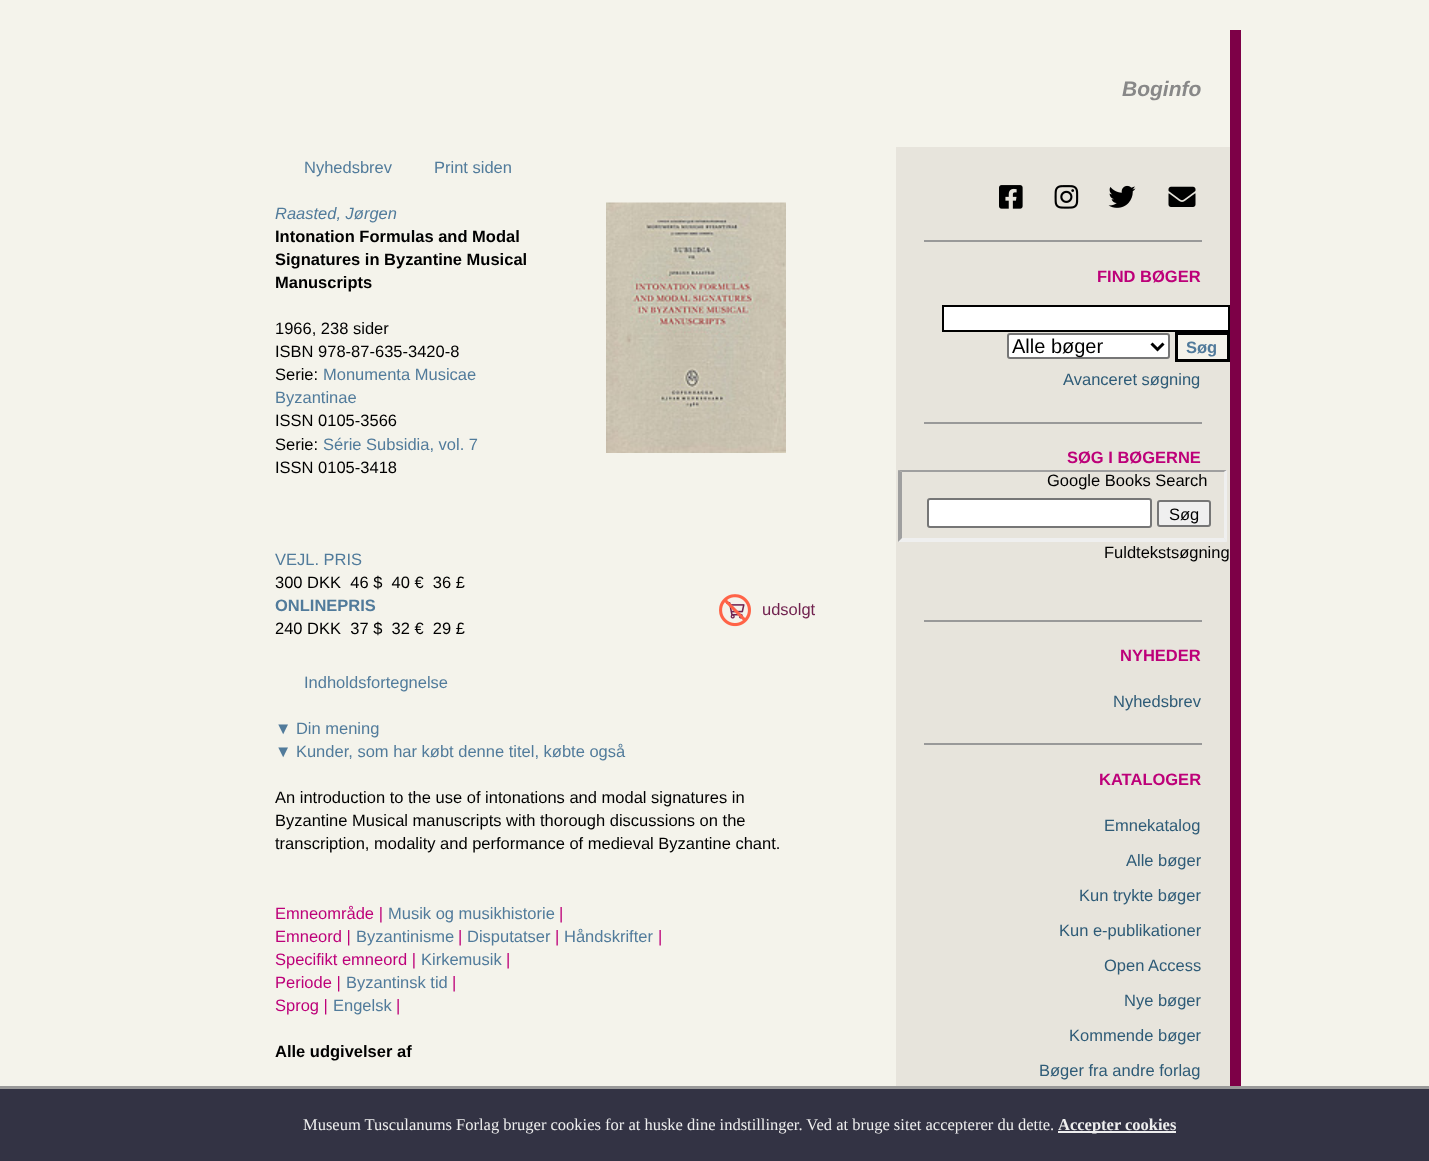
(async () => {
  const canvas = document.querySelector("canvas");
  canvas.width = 1429;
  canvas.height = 1161;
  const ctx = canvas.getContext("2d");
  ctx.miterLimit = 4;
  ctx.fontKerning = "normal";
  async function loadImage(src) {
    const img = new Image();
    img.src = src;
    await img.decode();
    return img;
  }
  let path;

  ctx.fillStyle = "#f4f3eb";
  ctx.fillRect(0, 0, 1429, 1161);
  for (const [x, y, w, h, color] of [
    [0, 1089, 1429, 72, "#333344"],
    [0, 1086, 1429, 3, "#999999"],
    [1058, 1131, 118, 2, "#eeeeee"],
  ]) {
    ctx.fillStyle = color;
    ctx.fillRect(x, y, w, h);
  }
  ctx.drawImage(await loadImage("img/1.png"), 606, 202, 180, 251);
  ctx.drawImage(await loadImage("img/3.png"), 726, 602, 19, 17);
  ctx.drawImage(await loadImage("img/2.png"), 719, 594, 32, 33);
  ctx.fillStyle = "#e7e4dc";
  ctx.fillRect(896, 147, 334, 939);
  ctx.drawImage(await loadImage("img/4.png"), 999, 185, 24, 24);
  ctx.drawImage(await loadImage("img/5.png"), 1054, 185, 25, 24);
  ctx.drawImage(await loadImage("img/6.png"), 1108, 185, 28, 23);
  ctx.drawImage(await loadImage("img/7.png"), 1168, 186, 28, 21);
  ctx.fillStyle = "#999999";
  ctx.fillRect(924, 240, 278, 2);
  ctx.fillStyle = "#ffffff";
  ctx.beginPath();
  ctx.rect(943, 306, 286, 25);
  ctx.fill();
  ctx.strokeStyle = "#000000";
  ctx.lineWidth = 2;
  ctx.stroke();
  ctx.beginPath();
  ctx.roundRect(1008, 334, 161, 24, 2);
  ctx.fill();
  ctx.strokeStyle = "#767676";
  ctx.stroke();
  path = new Path2D("M1151.5 343.5L1157.5 349.5L1163.5 343.5");
  ctx.strokeStyle = "#000000";
  ctx.lineWidth = 3;
  ctx.stroke(path);
  ctx.fillStyle = "#f4f3eb";
  ctx.beginPath();
  ctx.rect(1176.5, 333.5, 52, 27);
  ctx.fill();
  ctx.stroke();
  ctx.fillStyle = "#999999";
  ctx.fillRect(924, 422, 278, 2);
  ctx.fillStyle = "#9f9f9f";
  path = new Path2D("M898 470H1227L1224 472H902Z");
  ctx.fill(path);
  ctx.fillStyle = "#efefef";
  path = new Path2D("M1227 470V542L1224 538V472Z");
  ctx.fill(path);
  path = new Path2D("M1227 542H898L902 538H1224Z");
  ctx.fill(path);
  ctx.fillStyle = "#9f9f9f";
  path = new Path2D("M898 542V470L902 472V538Z");
  ctx.fill(path);
  ctx.fillStyle = "#ffffff";
  ctx.beginPath();
  ctx.roundRect(928, 499, 223, 28, 2);
  ctx.fill();
  ctx.strokeStyle = "#767676";
  ctx.lineWidth = 2;
  ctx.stroke();
  ctx.fillStyle = "#efefef";
  ctx.beginPath();
  ctx.roundRect(1158, 501, 52, 25, 2);
  ctx.fill();
  ctx.stroke();
  for (const [x, y, w, h, color] of [
    [924, 620, 278, 2, "#999999"],
    [924, 743, 278, 2, "#999999"],
    [1230, 30, 11, 1056, "#7d0047"],
  ]) {
    ctx.fillStyle = color;
    ctx.fillRect(x, y, w, h);
  }
  ctx.font = "italic bold 21px Liberation Sans";
  ctx.fillStyle = "#888888";
  ctx.fillText("Boginfo", 1122, 96);
  ctx.font = "16.5px Liberation Serif";
  ctx.fillStyle = "#eeeeee";
  ctx.fillText("Museum Tusculanums Forlag bruger cookies for at huske dine indstillinger. Ved at bruge sitet accepterer du dette.", 303, 1130);
  ctx.font = "bold 16.5px Liberation Serif";
  ctx.fillText("Accepter cookies", 1058, 1130);
  ctx.font = "16.5px Liberation Sans";
  ctx.fillStyle = "#517b9b";
  ctx.fillText("Nyhedsbrev", 304, 173);
  ctx.fillText("Print siden", 434, 173);
  ctx.font = "italic 16.5px Liberation Sans";
  ctx.fillText("Raasted, Jørgen", 275, 219);
  ctx.font = "bold 16.5px Liberation Sans";
  ctx.fillStyle = "#000000";
  for (const [text, x, y] of [
    ["Intonation Formulas and Modal", 275, 242],
    ["Signatures in Byzantine Musical", 275, 265],
    ["Manuscripts", 275, 288],
  ]) {
    ctx.fillText(text, x, y);
  }
  ctx.font = "16.5px Liberation Sans";
  for (const [text, x, y] of [
    ["1966, 238 sider", 275, 334],
    ["ISBN 978-87-635-3420-8", 275, 357],
    ["Serie:", 275, 380],
  ]) {
    ctx.fillText(text, x, y);
  }
  ctx.fillStyle = "#517b9b";
  ctx.fillText("Monumenta Musicae", 323, 380);
  ctx.fillText("Byzantinae", 275, 403);
  ctx.fillStyle = "#000000";
  ctx.fillText("ISSN 0105-3566", 275, 426);
  ctx.fillText("Serie:", 275, 450);
  ctx.fillStyle = "#517b9b";
  ctx.fillText("Série Subsidia, vol. 7", 323, 450);
  ctx.fillStyle = "#000000";
  ctx.fillText("ISSN 0105-3418", 275, 473);
  ctx.fillStyle = "#517b9b";
  ctx.fillText("VEJL. PRIS", 275, 565);
  ctx.fillStyle = "#000000";
  ctx.fillText("300 DKK  46 $  40 €  36 £", 275, 588);
  ctx.font = "bold 16.5px Liberation Sans";
  ctx.fillStyle = "#517b9b";
  ctx.fillText("ONLINEPRIS", 275, 611);
  ctx.font = "16.5px Liberation Sans";
  ctx.fillStyle = "#000000";
  ctx.fillText("240 DKK  37 $  32 €  29 £", 275, 634);
  ctx.fillStyle = "#71224f";
  ctx.fillText("udsolgt", 762, 615);
  ctx.fillStyle = "#517b9b";
  for (const [text, x, y] of [
    ["Indholdsfortegnelse", 304, 688],
    ["▼ Din mening", 275, 734],
    ["▼ Kunder, som har købt denne titel, købte også", 275, 757],
  ]) {
    ctx.fillText(text, x, y);
  }
  ctx.fillStyle = "#000000";
  for (const [text, x, y] of [
    ["An introduction to the use of intonations and modal signatures in", 275, 803],
    ["Byzantine Musical manuscripts with thorough discussions on the", 275, 826],
    ["transcription, modality and performance of medieval Byzantine chant.", 275, 849],
  ]) {
    ctx.fillText(text, x, y);
  }
  ctx.fillStyle = "#bd0079";
  ctx.fillText("Emneområde |", 275, 919);
  ctx.fillStyle = "#517b9b";
  ctx.fillText("Musik og musikhistorie", 388, 919);
  ctx.fillStyle = "#bd0079";
  ctx.fillText("|", 559, 919);
  ctx.fillText("Emneord |", 275, 942);
  ctx.fillStyle = "#517b9b";
  ctx.fillText("Byzantinisme", 356, 942);
  ctx.fillStyle = "#bd0079";
  ctx.fillText("|", 458, 942);
  ctx.fillStyle = "#517b9b";
  ctx.fillText("Disputatser", 467, 942);
  ctx.fillStyle = "#bd0079";
  ctx.fillText("|", 555, 942);
  ctx.fillStyle = "#517b9b";
  ctx.fillText("Håndskrifter", 564, 942);
  ctx.fillStyle = "#bd0079";
  ctx.fillText("|", 658, 942);
  ctx.fillText("Specifikt emneord |", 275, 965);
  ctx.fillStyle = "#517b9b";
  ctx.fillText("Kirkemusik", 421, 965);
  ctx.fillStyle = "#bd0079";
  ctx.fillText("|", 506, 965);
  ctx.fillText("Periode |", 275, 988);
  ctx.fillStyle = "#517b9b";
  ctx.fillText("Byzantinsk tid", 346, 988);
  ctx.fillStyle = "#bd0079";
  ctx.fillText("|", 452, 988);
  ctx.fillText("Sprog |", 275, 1011);
  ctx.fillStyle = "#517b9b";
  ctx.fillText("Engelsk", 333, 1011);
  ctx.fillStyle = "#bd0079";
  ctx.fillText("|", 396, 1011);
  ctx.font = "bold 16.5px Liberation Sans";
  ctx.fillStyle = "#000000";
  ctx.fillText("Alle udgivelser af", 275, 1057);
  ctx.fillStyle = "#bd0079";
  ctx.fillText("FIND BØGER", 1097, 282);
  ctx.font = "20px Liberation Sans";
  ctx.fillStyle = "#000000";
  ctx.fillText("Alle bøger", 1012, 353);
  ctx.font = "bold 16.5px Liberation Sans";
  ctx.fillStyle = "#517b9b";
  ctx.fillText("Søg", 1186, 353);
  ctx.font = "16.5px Liberation Sans";
  ctx.fillStyle = "#2e5b77";
  ctx.fillText("Avanceret søgning", 1063, 385);
  ctx.font = "bold 16.5px Liberation Sans";
  ctx.fillStyle = "#bd0079";
  ctx.fillText("SØG I BØGERNE", 1067, 463);
  ctx.font = "16.5px Liberation Sans";
  ctx.fillStyle = "#000000";
  for (const [text, x, y] of [
    ["Google Books Search", 1047, 486],
    ["Søg", 1169, 520],
    ["Fuldtekstsøgning", 1104, 558],
  ]) {
    ctx.fillText(text, x, y);
  }
  ctx.font = "bold 16.5px Liberation Sans";
  ctx.fillStyle = "#bd0079";
  ctx.fillText("NYHEDER", 1120, 661);
  ctx.font = "16.5px Liberation Sans";
  ctx.fillStyle = "#2e5b77";
  ctx.fillText("Nyhedsbrev", 1113, 707);
  ctx.font = "bold 16.5px Liberation Sans";
  ctx.fillStyle = "#bd0079";
  ctx.fillText("KATALOGER", 1099, 785);
  ctx.font = "16.5px Liberation Sans";
  ctx.fillStyle = "#2e5b77";
  for (const [text, x, y] of [
    ["Emnekatalog", 1104, 831],
    ["Alle bøger", 1126, 866],
    ["Kun trykte bøger", 1079, 901],
    ["Kun e-publikationer", 1059, 936],
    ["Open Access", 1104, 971],
    ["Nye bøger", 1124, 1006],
    ["Kommende bøger", 1069, 1041],
    ["Bøger fra andre forlag", 1039, 1076],
  ]) {
    ctx.fillText(text, x, y);
  }
})();
